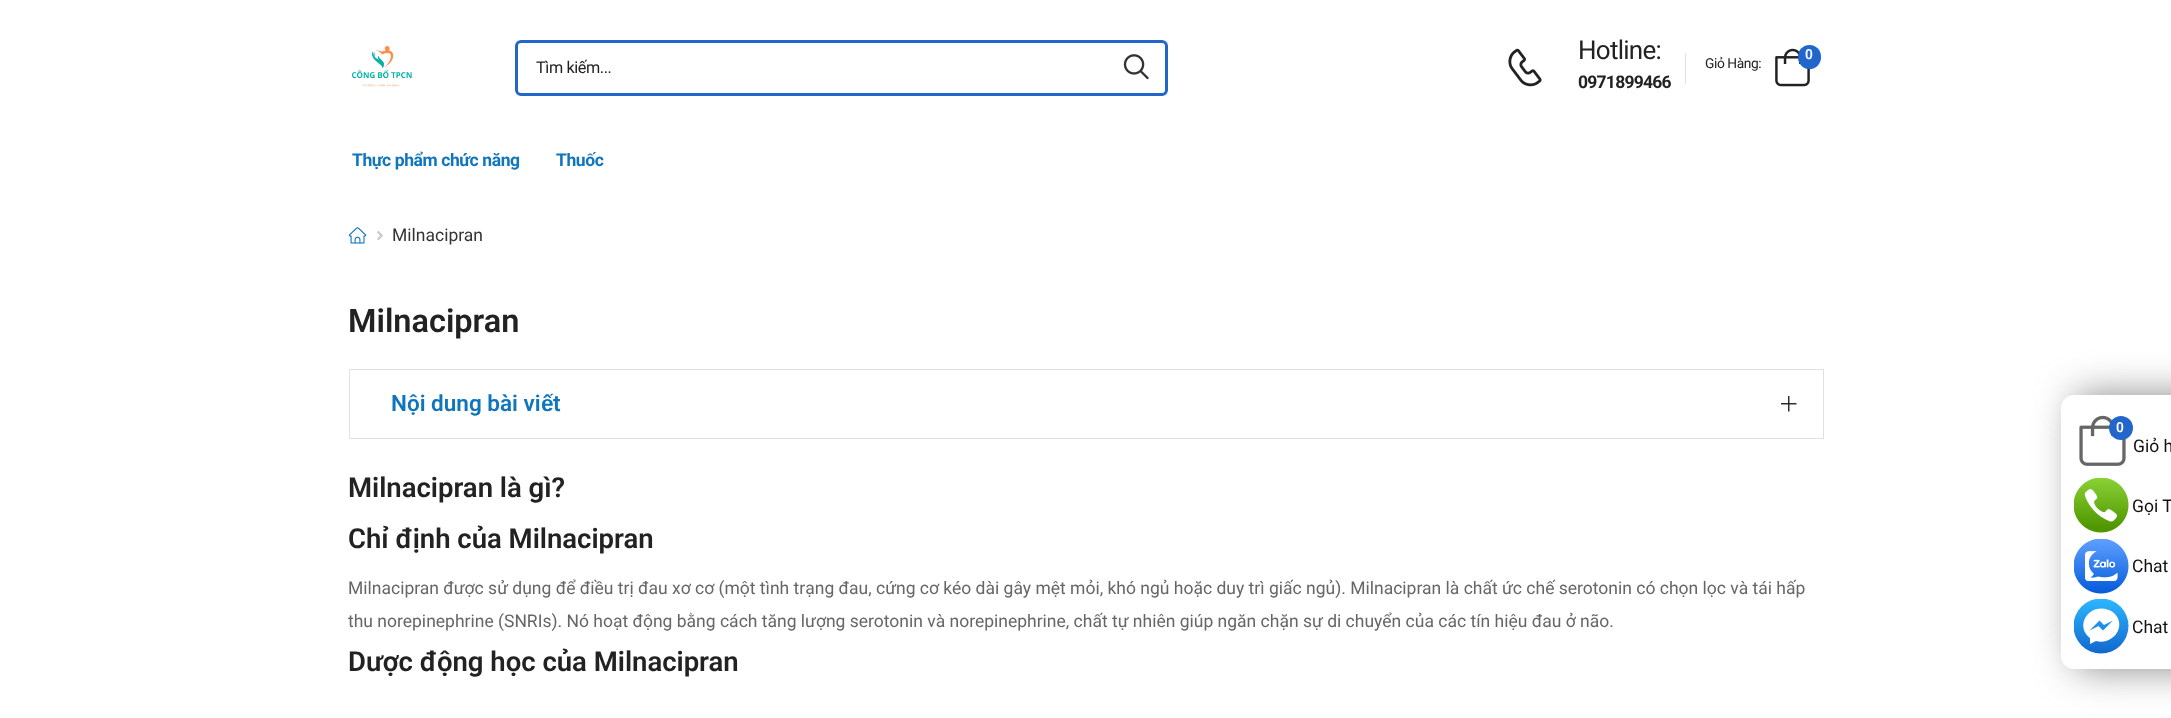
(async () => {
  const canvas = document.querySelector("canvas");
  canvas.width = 2171;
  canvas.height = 718;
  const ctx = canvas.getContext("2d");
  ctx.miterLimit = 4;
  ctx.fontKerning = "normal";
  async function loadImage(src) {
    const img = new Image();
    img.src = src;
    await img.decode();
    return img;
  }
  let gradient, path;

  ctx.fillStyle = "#ffffff";
  ctx.fillRect(0, 0, 2171, 718);
  ctx.drawImage(await loadImage("img/1.png"), 352, 46, 60, 41);
  ctx.beginPath();
  ctx.roundRect(516.5, 41.5, 650, 53, 4.5);
  ctx.strokeStyle = "#2266cc";
  ctx.lineWidth = 3;
  ctx.stroke();
  ctx.drawImage(await loadImage("img/2.png"), 1123, 54, 26, 26);
  ctx.drawImage(await loadImage("img/3.png"), 1508, 48, 34, 39);
  ctx.fillStyle = "#e1e1e1";
  ctx.fillRect(1685, 53, 1, 31);
  ctx.drawImage(await loadImage("img/4.png"), 1775, 48, 35, 39);
  ctx.fillStyle = "#2266cc";
  ctx.beginPath();
  ctx.roundRect(1798, 45, 23, 24, 11.5);
  ctx.fill();
  ctx.drawImage(await loadImage("img/5.png"), 348, 227, 19, 17);
  ctx.drawImage(await loadImage("img/6.png"), 377, 231, 6, 10);
  ctx.strokeStyle = "#e1e1e1";
  ctx.lineWidth = 1;
  ctx.strokeRect(349.5, 369.5, 1474, 69);
  ctx.drawImage(await loadImage("img/7.png"), 1781, 396, 16, 16);
  ctx.fillStyle = "#888888";
  ctx.filter = "blur(19px)";
  ctx.beginPath();
  ctx.roundRect(2074, 395, 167, 274, 13);
  ctx.fill();
  ctx.filter = "none";
  ctx.fillStyle = "#ffffff";
  path = new Path2D("M2074 395H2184V669H2074C2067 669 2061 663 2061 656V408C2061 401 2067 395 2074 395Z");
  ctx.fill(path);
  ctx.drawImage(await loadImage("img/8.png"), 2079, 415, 47, 51);
  ctx.fillStyle = "#2266cc";
  ctx.beginPath();
  ctx.arc(2121, 428, 12, 0, Math.PI * 2);
  ctx.fill();
  ctx.drawImage(await loadImage("img/9.png"), 2074, 478, 55, 55);
  ctx.drawImage(await loadImage("img/10.png"), 2074, 539, 55, 55);
  ctx.save();
  ctx.beginPath();
  ctx.rect(2074, 599, 55, 55);
  ctx.clip();
  gradient = ctx.createLinearGradient(2101, 653, 2101, 599);
  gradient.addColorStop(0, "#1168cf");
  gradient.addColorStop(1, "#2cb7ff");
  ctx.fillStyle = gradient;
  ctx.beginPath();
  ctx.arc(2101, 626, 27.5, 0, Math.PI * 2);
  ctx.fill();
  ctx.restore();
  ctx.fillStyle = "#ffffff";
  path = new Path2D("M2101.5 608.5C2085 608.5 2076.5 628 2090 638V644L2096 641C2113 645.5 2127.5 626 2114 613C2110.5 610 2106 608.5 2101.5 608.5ZM2103 630.5L2098.5 626L2089.5 630.5L2099.5 620.5L2104 625L2113 620.5Z");
  ctx.fill(path, "evenodd");
  ctx.letterSpacing = "-0.4px";
  ctx.font = "16.25px Roboto";
  ctx.fillStyle = "#222222";
  ctx.fillText("Tìm kiếm...", 536, 73);
  ctx.letterSpacing = "-0.75px";
  ctx.font = "26px Roboto";
  ctx.fillText("Hotline:", 1578, 59);
  ctx.font = "bold 17.5px Roboto";
  ctx.fillText("0971899466", 1578, 88);
  ctx.letterSpacing = "-0.4px";
  ctx.font = "600 13.75px Roboto";
  ctx.fillStyle = "#ffffff";
  ctx.fillText("0", 1805, 59);
  ctx.font = "13.75px Roboto";
  ctx.fillStyle = "#222222";
  ctx.fillText("Giỏ Hàng:", 1705, 68);
  ctx.font = "bold 17.5px Roboto";
  ctx.fillStyle = "#0f75bc";
  ctx.fillText("Thực phẩm chức năng", 352, 166);
  ctx.fillText("Thuốc", 556, 166);
  ctx.letterSpacing = "0px";
  ctx.font = "17.5px Roboto";
  ctx.fillStyle = "#333333";
  ctx.fillText("Milnacipran", 392, 241);
  ctx.font = "600 32.5px Roboto";
  ctx.fillStyle = "#222222";
  ctx.fillText("Milnacipran", 348, 332);
  ctx.font = "600 22.5px Roboto";
  ctx.fillStyle = "#0f75bc";
  ctx.fillText("Nội dung bài vi", 391, 411);
  ctx.font = "bold 22.5px Liberation Sans";
  ctx.fillText("ế", 541, 411);
  ctx.font = "600 22.5px Roboto";
  ctx.fillText("t", 553, 411);
  ctx.font = "600 27.5px Roboto";
  ctx.fillStyle = "#222222";
  ctx.fillText("Milnacipran là gì?", 348, 497);
  ctx.fillText("Chỉ định của Milnacipran", 348, 548);
  ctx.font = "17.5px Roboto";
  ctx.fillStyle = "#666666";
  ctx.fillText("Milnacipran được sử dụng để điều trị đau xơ cơ (một tình trạng đau, cứng cơ kéo dài gây mệt mỏi, khó ngủ hoặc duy trì giấc ngủ). Milnacipran là chất ức chế serotonin có chọn lọc và tái hấp", 348, 594);
  ctx.fillText("thu norepinephrine (SNRIs). Nó hoạt động bằng cách tăng lượng serotonin và norepinephrine, chất tự nhiên giúp ngăn chặn sự di chuyển của các tín hiệu đau ở não.", 348, 627);
  ctx.font = "600 27.5px Roboto";
  ctx.fillStyle = "#222222";
  ctx.fillText("Dược động học của Milnacipran", 348, 671);
  ctx.font = "600 13.75px Roboto";
  ctx.fillStyle = "#ffffff";
  ctx.fillText("0", 2116, 432);
  ctx.font = "17.5px Roboto";
  ctx.fillStyle = "#111111";
  for (const [text, x, y] of [
    ["Giỏ h", 2133, 452],
    ["Gọi T", 2132, 512],
    ["Chat", 2132, 572],
    ["Chat", 2132, 633],
  ]) {
    ctx.fillText(text, x, y);
  }
})();
